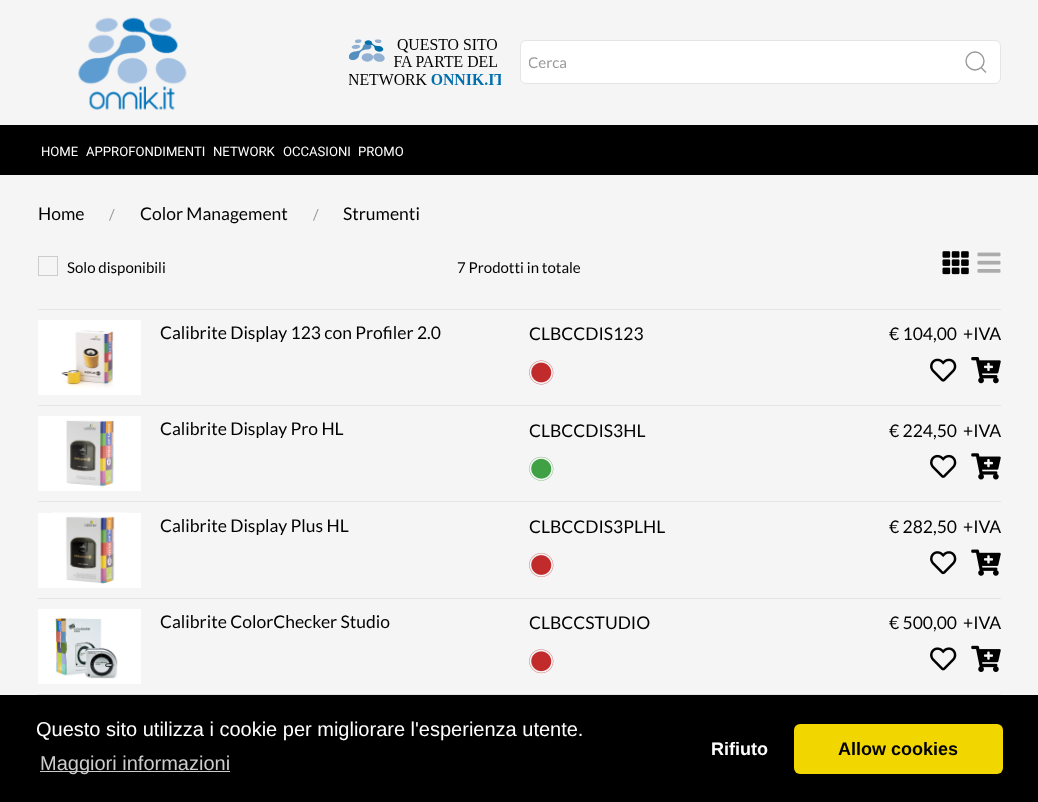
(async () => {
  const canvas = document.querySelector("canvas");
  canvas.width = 1038;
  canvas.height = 802;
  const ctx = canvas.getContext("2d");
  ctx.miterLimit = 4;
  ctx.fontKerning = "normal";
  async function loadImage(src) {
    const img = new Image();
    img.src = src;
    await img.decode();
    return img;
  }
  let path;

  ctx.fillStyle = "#f5f5f5";
  ctx.fillRect(0, 0, 1038, 802);
  ctx.drawImage(await loadImage("img/1.png"), 78, 17, 109, 93);
  ctx.drawImage(await loadImage("img/2.png"), 349, 39, 152, 46);
  ctx.fillStyle = "#ffffff";
  ctx.beginPath();
  ctx.roundRect(520.5, 40.5, 480, 43, 5.5);
  ctx.fill();
  ctx.strokeStyle = "#e5e5e5";
  ctx.stroke();
  ctx.beginPath();
  ctx.arc(975, 61, 9, 0, Math.PI * 2);
  ctx.strokeStyle = "#999999";
  ctx.lineWidth = 1.4;
  ctx.stroke();
  path = new Path2D("M981 67.5L986 72.5Z");
  ctx.stroke(path);
  ctx.fillStyle = "#000000";
  ctx.fillRect(0, 125, 1038, 50);
  ctx.strokeStyle = "#cccccc";
  ctx.lineWidth = 1;
  ctx.strokeRect(38.5, 256.5, 19, 19);
  ctx.drawImage(await loadImage("img/3.png"), 942, 251, 27, 24);
  ctx.drawImage(await loadImage("img/4.png"), 977, 252, 24, 21);
  ctx.fillStyle = "#e5e5e5";
  ctx.fillRect(38, 309, 963, 1);
  ctx.fillStyle = "#ffffff";
  ctx.fillRect(38, 320, 103, 75);
  ctx.drawImage(await loadImage("img/5.png"), 61, 330, 53, 59);
  ctx.drawImage(await loadImage("img/6.png"), 529, 360, 25, 25);
  ctx.drawImage(await loadImage("img/7.png"), 930, 358, 27, 24);
  ctx.drawImage(await loadImage("img/8.png"), 971, 357, 30, 27);
  ctx.fillStyle = "#e5e5e5";
  ctx.fillRect(38, 405, 963, 1);
  ctx.fillStyle = "#ffffff";
  ctx.fillRect(38, 416, 103, 75);
  ctx.drawImage(await loadImage("img/9.png"), 66, 420, 48, 67);
  ctx.drawImage(await loadImage("img/10.png"), 529, 456, 25, 25);
  ctx.drawImage(await loadImage("img/11.png"), 930, 454, 27, 24);
  ctx.drawImage(await loadImage("img/12.png"), 971, 453, 30, 27);
  ctx.fillStyle = "#e5e5e5";
  ctx.fillRect(38, 501, 963, 1);
  ctx.fillStyle = "#ffffff";
  ctx.fillRect(38, 513, 103, 75);
  ctx.drawImage(await loadImage("img/13.png"), 53, 512, 74, 72);
  ctx.drawImage(await loadImage("img/14.png"), 529, 553, 25, 24);
  ctx.drawImage(await loadImage("img/15.png"), 930, 551, 27, 24);
  ctx.drawImage(await loadImage("img/16.png"), 971, 549, 30, 27);
  ctx.fillStyle = "#e5e5e5";
  ctx.fillRect(38, 598, 963, 1);
  ctx.fillStyle = "#ffffff";
  ctx.fillRect(38, 609, 103, 75);
  ctx.drawImage(await loadImage("img/17.png"), 55, 618, 63, 61);
  ctx.drawImage(await loadImage("img/18.png"), 529, 649, 25, 25);
  ctx.drawImage(await loadImage("img/19.png"), 930, 647, 27, 24);
  ctx.drawImage(await loadImage("img/20.png"), 971, 645, 30, 27);
  for (const [x, y, w, h, color] of [
    [38, 694, 963, 1, "#e5e5e5"],
    [0, 695, 1038, 107, "#000000"],
    [40, 771, 190, 1, "#cccccc"],
  ]) {
    ctx.fillStyle = color;
    ctx.fillRect(x, y, w, h);
  }
  ctx.fillStyle = "#f1d600";
  ctx.beginPath();
  ctx.roundRect(794, 724, 209, 50, 6);
  ctx.fill();
  ctx.save();
  ctx.beginPath();
  ctx.rect(529, 53, 416, 18);
  ctx.clip();
  ctx.font = "15px Lato";
  ctx.fillStyle = "#999999";
  ctx.fillText("Cerca", 528, 68);
  ctx.restore();
  ctx.font = "13.1px Roboto";
  ctx.fillStyle = "#ffffff";
  for (const [text, x, y] of [
    ["HOME", 41, 156],
    ["APPROFONDIMENTI", 86, 156],
    ["NETWORK", 213, 156],
    ["OCCASIONI", 283, 156],
    ["PROMO", 358, 156],
  ]) {
    ctx.fillText(text, x, y);
  }
  ctx.font = "17.5px Lato";
  ctx.fillStyle = "#000000";
  ctx.fillText("Home", 38, 220);
  ctx.font = "15px Lato";
  ctx.fillStyle = "#999999";
  ctx.fillText("/", 109, 220);
  ctx.font = "17.5px Lato";
  ctx.fillStyle = "#000000";
  ctx.fillText("Color Management", 140, 220);
  ctx.font = "15px Lato";
  ctx.fillStyle = "#999999";
  ctx.fillText("/", 313, 220);
  ctx.font = "17.5px Lato";
  ctx.fillStyle = "#000000";
  ctx.fillText("Strumenti", 343, 220);
  ctx.font = "15px Lato";
  ctx.fillText("Solo disponibili", 67, 273);
  ctx.fillText("7 Prodotti in totale", 457, 273);
  ctx.font = "17.5px Lato";
  for (const [text, x, y] of [
    ["Calibrite Display 123 con Profiler 2.0", 160, 339],
    ["CLBCCDIS123", 529, 340],
    ["€ 104,00", 889, 340],
    ["+IVA", 963, 340],
    ["Calibrite Display Pro HL", 160, 435],
    ["CLBCCDIS3HL", 529, 437],
    ["€ 224,50", 889, 437],
    ["+IVA", 963, 437],
    ["Calibrite Display Plus HL", 160, 532],
    ["CLBCCDIS3PLHL", 529, 533],
    ["€ 282,50", 889, 533],
    ["+IVA", 963, 533],
    ["Calibrite ColorChecker Studio", 160, 628],
    ["CLBCCSTUDIO", 529, 629],
    ["€ 500,00", 889, 629],
    ["+IVA", 963, 629],
  ]) {
    ctx.fillText(text, x, y);
  }
  ctx.font = "20px Liberation Sans";
  ctx.fillStyle = "#ffffff";
  ctx.fillText("Questo sito utilizza i cookie per migliorare l'esperienza utente.", 36, 736);
  ctx.fillStyle = "#cccccc";
  ctx.fillText("Maggiori informazioni", 40, 770);
  ctx.font = "bold 18px Liberation Sans";
  ctx.fillStyle = "#ffffff";
  ctx.fillText("Rifiuto", 711, 755);
  ctx.fillStyle = "#000000";
  ctx.fillText("Allow cookies", 838, 755);
})();
